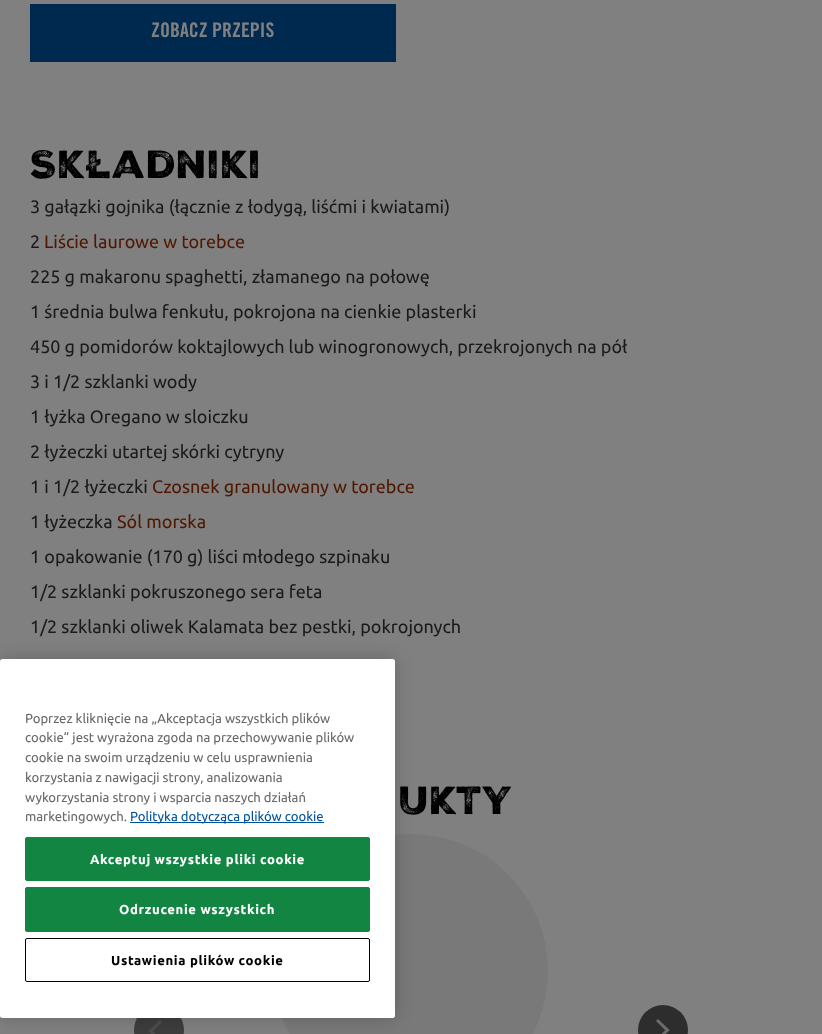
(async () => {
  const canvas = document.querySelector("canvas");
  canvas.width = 822;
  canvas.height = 1034;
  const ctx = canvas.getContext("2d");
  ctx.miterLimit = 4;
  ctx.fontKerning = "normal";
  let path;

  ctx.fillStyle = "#808080";
  ctx.fillRect(0, 0, 822, 1034);
  ctx.fillStyle = "#00294f";
  ctx.fillRect(30, 4, 366, 58);
  ctx.fillStyle = "#3d3d3d";
  ctx.beginPath();
  ctx.arc(159, 1030, 25, 0, Math.PI * 2);
  ctx.fill();
  ctx.fillStyle = "#4e4e4e";
  path = new Path2D("M160 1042.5L148.5 1031L150.5 1029L162 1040.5Z");
  ctx.fill(path);
  path = new Path2D("M150.5 1033.5L148.5 1031L160 1020L162 1022Z");
  ctx.fill(path);
  ctx.fillStyle = "#797979";
  ctx.beginPath();
  ctx.arc(411, 971, 137, 0, Math.PI * 2);
  ctx.fill();
  ctx.fillStyle = "#2d2d2d";
  ctx.beginPath();
  ctx.arc(663, 1030, 25, 0, Math.PI * 2);
  ctx.fill();
  ctx.fillStyle = "#6b6b6b";
  path = new Path2D("M658 1019L669.5 1030L667.5 1032.5L656 1021Z");
  ctx.fill(path);
  path = new Path2D("M667.5 1028L669.5 1030L658 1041.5L656 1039.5Z");
  ctx.fill(path);
  ctx.fillStyle = "rgba(0, 0, 0, 0.2)";
  ctx.filter = "blur(9px)";
  ctx.beginPath();
  ctx.roundRect(0, 659, 395, 359, 2.5);
  ctx.fill();
  ctx.filter = "none";
  ctx.fillStyle = "#ffffff";
  ctx.beginPath();
  ctx.roundRect(0, 659, 395, 359, 2.5);
  ctx.fill();
  ctx.fillStyle = "#00529d";
  ctx.fillRect(130, 822, 194, 1);
  ctx.fillStyle = "#128543";
  ctx.beginPath();
  ctx.roundRect(25.5, 837.5, 344, 43, 1.5);
  ctx.fill();
  ctx.strokeStyle = "#128543";
  ctx.stroke();
  ctx.beginPath();
  ctx.roundRect(25.5, 887.5, 344, 44, 1.5);
  ctx.fill();
  ctx.stroke();
  ctx.beginPath();
  ctx.roundRect(25.5, 938.5, 344, 43, 1.5);
  ctx.strokeStyle = "#000000";
  ctx.stroke();
  ctx.font = "bold 20px Trade Gothic";
  ctx.fillStyle = "#808080";
  ctx.fillText("ZOBACZ PRZEPIS", 151, 37);
  ctx.font = "900 38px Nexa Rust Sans";
  ctx.fillStyle = "#000000";
  ctx.fillText("Składniki", 30, 178);
  ctx.font = "18px Ubuntu";
  ctx.fillStyle = "#1a1a1a";
  ctx.fillText("3 gałązki gojnika (łącznie z łodygą, liśćmi i kwiatami)", 30, 213);
  ctx.fillText("2", 30, 248);
  ctx.fillStyle = "#501700";
  ctx.fillText("Liście laurowe w torebce", 44, 248);
  ctx.fillStyle = "#1a1a1a";
  for (const [text, x, y] of [
    ["225 g makaronu spaghetti, złamanego na połowę", 30, 283],
    ["1 średnia bulwa fenkułu, pokrojona na cienkie plasterki", 30, 318],
    ["450 g pomidorów koktajlowych lub winogronowych, przekrojonych na pół", 30, 353],
    ["3 i 1/2 szklanki wody", 30, 388],
    ["1 łyżka Oregano w sloiczku", 30, 423],
    ["2 łyżeczki utartej skórki cytryny", 30, 458],
    ["1 i 1/2 łyżeczki", 30, 493],
  ]) {
    ctx.fillText(text, x, y);
  }
  ctx.fillStyle = "#501700";
  ctx.fillText("Czosnek granulowany w torebce", 152, 493);
  ctx.fillStyle = "#1a1a1a";
  ctx.fillText("1 łyżeczka", 30, 528);
  ctx.fillStyle = "#501700";
  ctx.fillText("Sól morska", 117, 528);
  ctx.fillStyle = "#1a1a1a";
  for (const [text, x, y] of [
    ["1 opakowanie (170 g) liści młodego szpinaku", 30, 563],
    ["1/2 szklanki pokruszonego sera feta", 30, 598],
    ["1/2 szklanki oliwek Kalamata bez pestki, pokrojonych", 30, 633],
  ]) {
    ctx.fillText(text, x, y);
  }
  ctx.font = "900 38px Nexa Rust Sans";
  ctx.fillStyle = "#000000";
  ctx.fillText("UKTY", 399, 814);
  ctx.font = "13.1px Ubuntu";
  ctx.fillStyle = "#696969";
  for (const [text, x, y] of [
    ["Poprzez kliknięcie na „Akceptacja wszystkich plików", 25, 723],
    ["cookie” jest wyrażona zgoda na przechowywanie plików", 25, 742],
    ["cookie na swoim urządzeniu w celu usprawnienia", 25, 762],
    ["korzystania z nawigacji strony, analizowania", 25, 782],
    ["wykorzystania strony i wsparcia naszych działań", 25, 802],
    ["marketingowych.", 25, 821],
  ]) {
    ctx.fillText(text, x, y);
  }
  ctx.fillStyle = "#00529d";
  ctx.fillText("Polityka dotycząca plików cookie", 130, 821);
  ctx.letterSpacing = "0.65px";
  ctx.font = "bold 13.1px Ubuntu";
  ctx.fillStyle = "#ffffff";
  ctx.fillText("Akceptuj wszystkie pliki cookie", 90, 864);
  ctx.fillText("Odrzucenie wszystkich", 119, 914);
  ctx.fillStyle = "#000000";
  ctx.fillText("Ustawienia plików cookie", 111, 965);
})();
